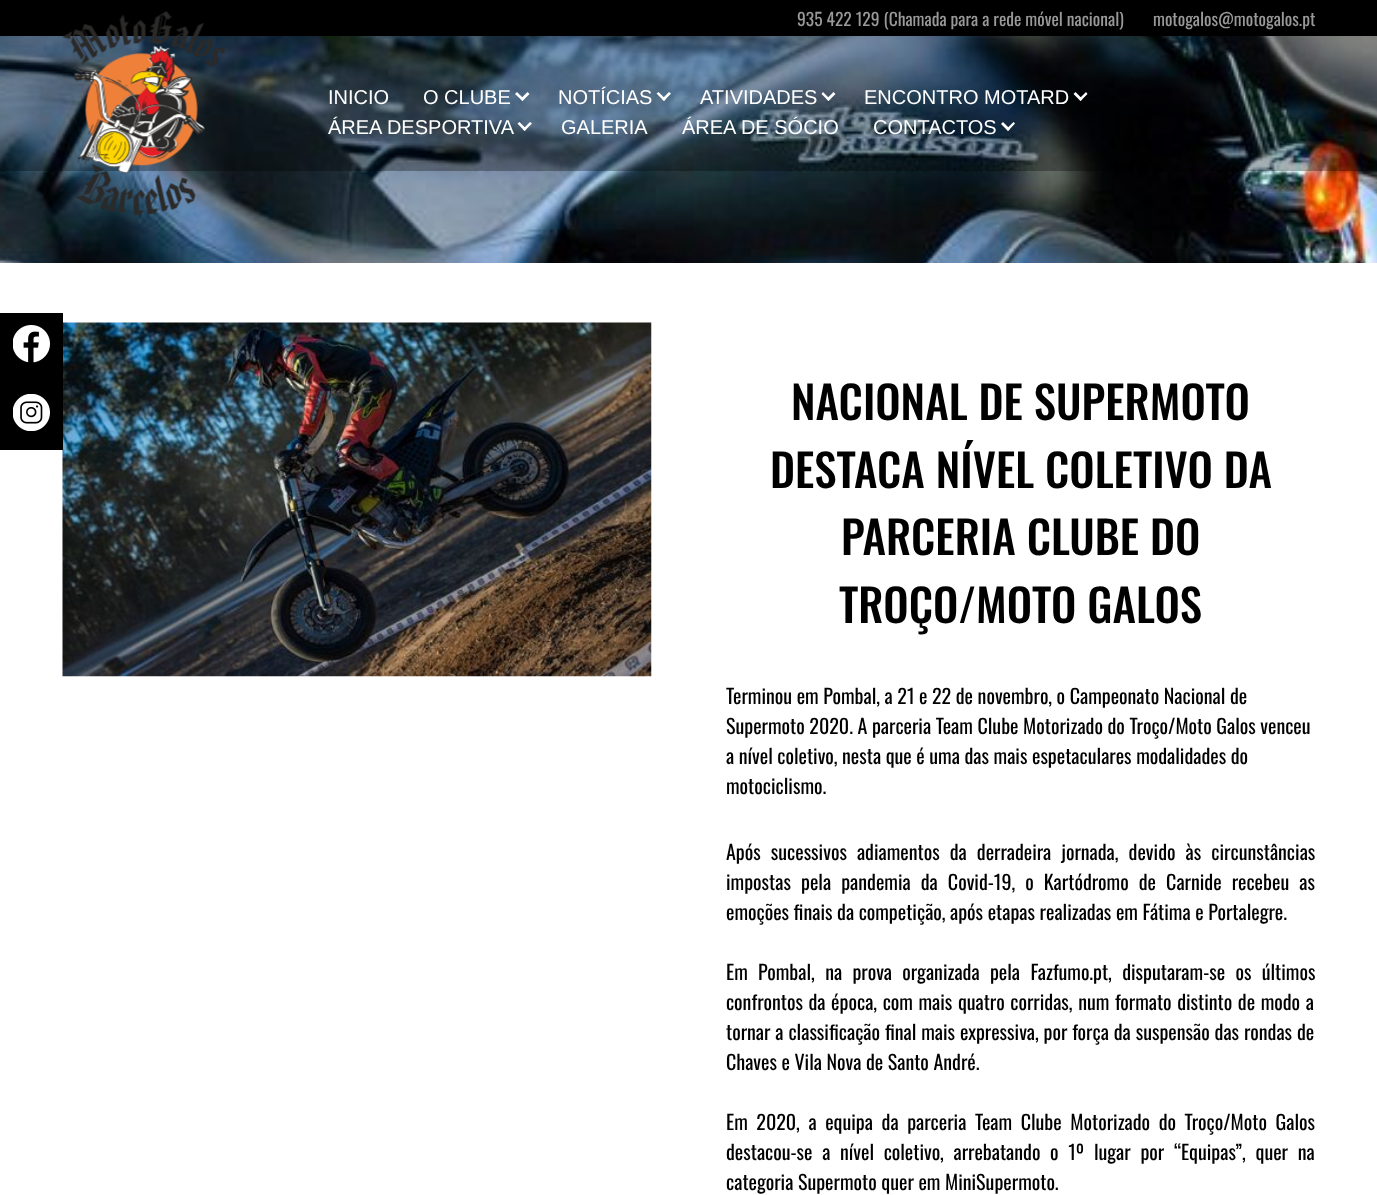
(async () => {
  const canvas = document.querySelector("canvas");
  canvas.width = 1377;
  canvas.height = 1195;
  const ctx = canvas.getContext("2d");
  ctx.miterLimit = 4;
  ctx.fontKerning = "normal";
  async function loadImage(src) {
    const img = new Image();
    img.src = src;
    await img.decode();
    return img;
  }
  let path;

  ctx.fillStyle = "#ffffff";
  ctx.fillRect(0, 0, 1377, 1195);
  ctx.fillStyle = "#000000";
  ctx.fillRect(0, 0, 1377, 36);
  ctx.drawImage(await loadImage("img/2.png"), 0, 36, 1377, 227);
  ctx.fillStyle = "rgba(0, 0, 0, 0.3)";
  ctx.fillRect(0, 36, 1377, 135);
  ctx.drawImage(await loadImage("img/1.png"), 62, 11, 163, 205);
  ctx.fillStyle = "#ffffff";
  path = new Path2D("M527.5 92L529.5 94L522.5 101L520.5 99Z");
  ctx.fill(path);
  path = new Path2D("M517 92L524 99L522.5 101L515 94Z");
  ctx.fill(path);
  path = new Path2D("M669 92L671 93.5L664 101L662 99Z");
  ctx.fill(path);
  path = new Path2D("M658.5 92L665.5 99L664 101L656.5 93.5Z");
  ctx.fill(path);
  path = new Path2D("M833.5 92L835.5 94L828.5 101L826.5 99Z");
  ctx.fill(path);
  path = new Path2D("M823 92L830 99L828.5 101L821.5 94Z");
  ctx.fill(path);
  path = new Path2D("M1086 92L1087.5 94L1080.5 101L1079 99Z");
  ctx.fill(path);
  path = new Path2D("M1075.5 92L1082.5 99L1080.5 101L1073.5 94Z");
  ctx.fill(path);
  path = new Path2D("M530 122L532 123.5L524.5 131L523 129Z");
  ctx.fill(path);
  path = new Path2D("M519.5 122L526.5 129L524.5 131L517.5 123.5Z");
  ctx.fill(path);
  path = new Path2D("M1013.5 122L1015 123.5L1008 131L1006.5 129Z");
  ctx.fill(path);
  path = new Path2D("M1003 122L1010 129L1008 131L1001 124Z");
  ctx.fill(path);
  ctx.drawImage(await loadImage("img/5.png"), 62, 322, 590, 355);
  ctx.fillStyle = "#000000";
  ctx.fillRect(0, 313, 63, 137);
  ctx.drawImage(await loadImage("img/3.png"), 13, 325, 37, 38);
  ctx.drawImage(await loadImage("img/4.png"), 13, 394, 37, 37);
  ctx.font = "17.5px Oswald";
  ctx.fillStyle = "#999999";
  ctx.fillText("935 422 129 (Chamada para a rede móvel nacional)", 797, 26);
  ctx.fillText("motogalos@motogalos.pt", 1153, 26);
  ctx.font = "20px Liberation Sans";
  ctx.fillStyle = "#ffffff";
  for (const [text, x, y] of [
    ["INICIO", 328, 104],
    ["O CLUBE", 423, 104],
    ["NOTÍCIAS", 558, 104],
    ["ATIVIDADES", 700, 104],
    ["ENCONTRO MOTARD", 864, 104],
    ["ÁREA DESPORTIVA", 328, 134],
    ["GALERIA", 561, 134],
    ["ÁREA DE SÓCIO", 682, 134],
    ["CONTACTOS", 873, 134],
  ]) {
    ctx.fillText(text, x, y);
  }
  ctx.font = "500 45px Oswald";
  ctx.fillStyle = "#000000";
  for (const [text, x, y] of [
    ["NACIONAL DE SUPERMOTO", 791, 420],
    ["DESTACA NÍVEL COLETIVO DA", 770, 488],
    ["PARCERIA CLUBE DO", 841, 555],
    ["TROÇO/MOTO GALOS", 839, 623],
  ]) {
    ctx.fillText(text, x, y);
  }
  ctx.font = "20px Oswald";
  for (const [text, x, y] of [
    ["Terminou em Pombal, a 21 e 22 de novembro, o Campeonato Nacional de", 726, 704],
    ["Supermoto 2020. A parceria Team Clube Motorizado do Troço/Moto Galos venceu", 726, 734],
    ["a nível coletivo, nesta que é uma das mais espetaculares modalidades do", 726, 764],
    ["motociclismo.", 726, 794],
  ]) {
    ctx.fillText(text, x, y);
  }
  ctx.wordSpacing = "5.5px";
  ctx.fillText("Após sucessivos adiamentos da derradeira jornada, devido às circunstâncias", 726, 860);
  ctx.fillText("impostas pela pandemia da Covid-19, o Kartódromo de Carnide recebeu as", 726, 890);
  ctx.wordSpacing = "0px";
  ctx.fillText("emoções finais da competição, após etapas realizadas em Fátima e Portalegre.", 726, 920);
  ctx.wordSpacing = "5.75px";
  ctx.fillText("Em Pombal, na prova organizada pela Fazfumo.pt, disputaram-se os últimos", 726, 980);
  ctx.wordSpacing = "1px";
  ctx.fillText("confrontos da época, com mais quatro corridas, num formato distinto de modo a", 726, 1010);
  ctx.wordSpacing = "0.3px";
  ctx.fillText("tornar a classificação final mais expressiva, por força da suspensão das rondas de", 726, 1040);
  ctx.wordSpacing = "0px";
  ctx.fillText("Chaves e Vila Nova de Santo André.", 726, 1070);
  ctx.wordSpacing = "4px";
  ctx.fillText("Em 2020, a equipa da parceria Team Clube Motorizado do Troço/Moto Galos", 726, 1130);
  ctx.wordSpacing = "5.1px";
  ctx.fillText("destacou-se a nível coletivo, arrebatando o 1º lugar por “Equipas”, quer na", 726, 1160);
  ctx.wordSpacing = "0px";
  ctx.fillText("categoria Supermoto quer em MiniSupermoto.", 726, 1190);
})();
